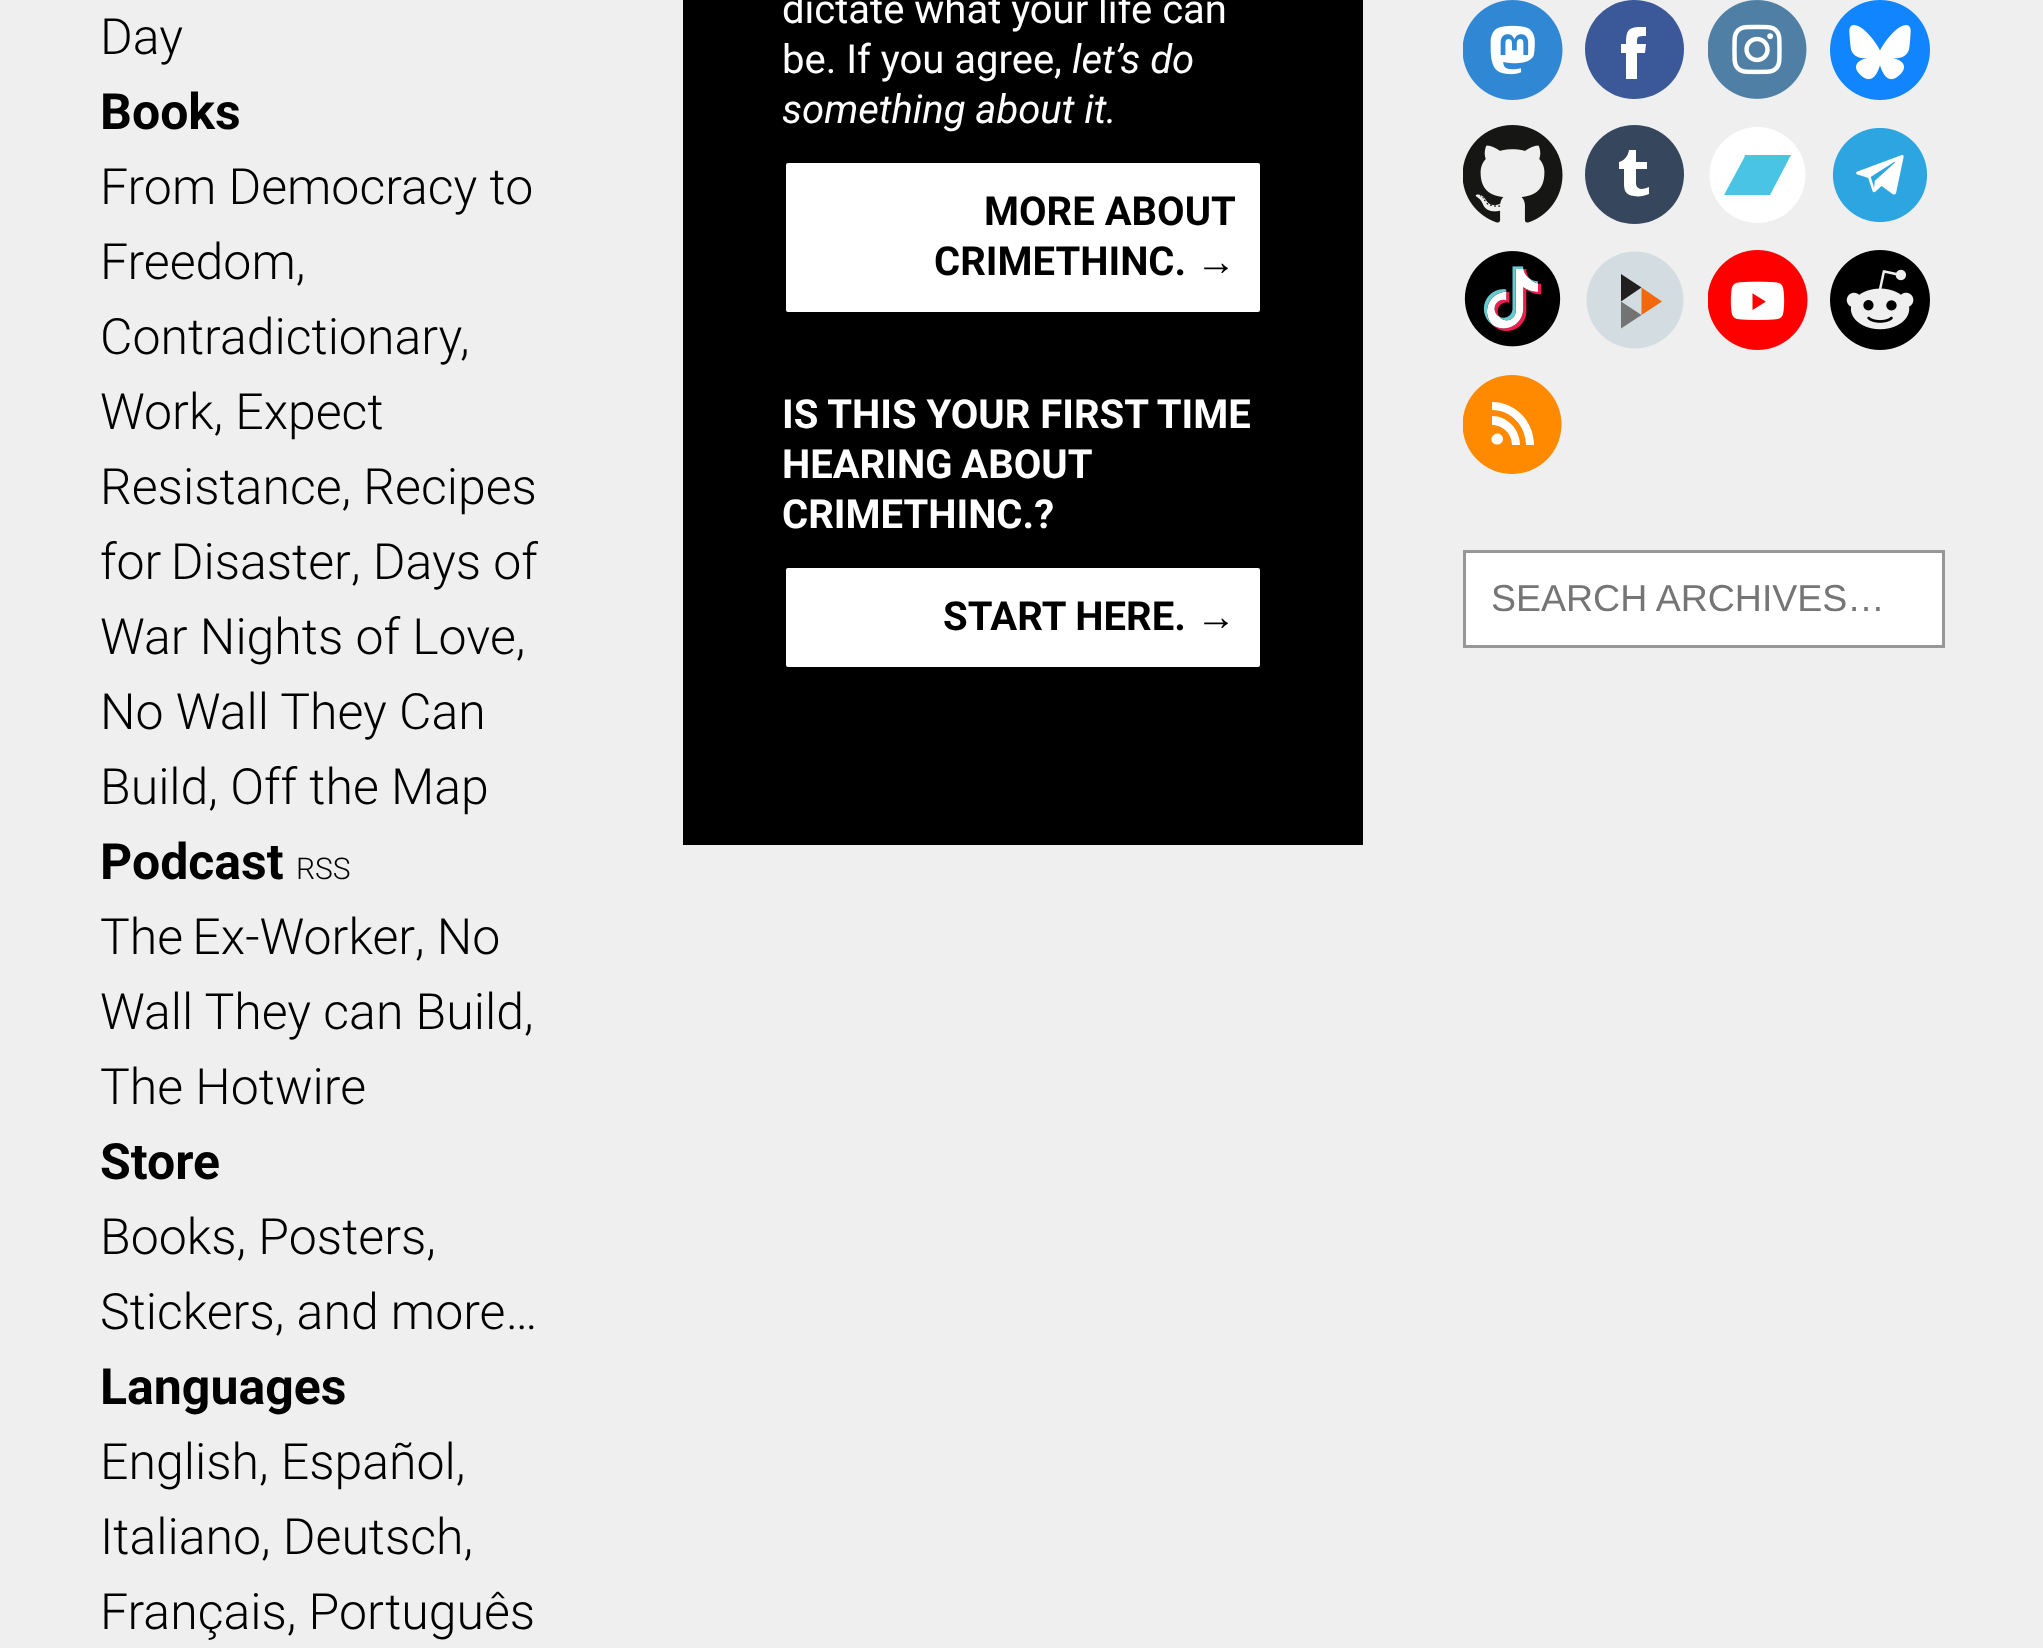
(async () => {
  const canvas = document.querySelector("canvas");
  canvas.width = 2043;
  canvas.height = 1648;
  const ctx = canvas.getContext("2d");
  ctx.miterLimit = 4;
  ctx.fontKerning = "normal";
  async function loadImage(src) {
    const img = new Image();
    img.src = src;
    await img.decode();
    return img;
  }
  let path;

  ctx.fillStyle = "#efefef";
  ctx.fillRect(0, 0, 2043, 1648);
  ctx.fillStyle = "#000000";
  ctx.fillRect(683, 0, 680, 845);
  ctx.fillStyle = "#ffffff";
  ctx.beginPath();
  ctx.roundRect(784.5, 161.5, 477, 152, 3.5);
  ctx.fill();
  ctx.strokeStyle = "#000000";
  ctx.lineWidth = 3;
  ctx.stroke();
  ctx.beginPath();
  ctx.roundRect(784.5, 566.5, 477, 102, 3.5);
  ctx.fill();
  ctx.stroke();
  ctx.drawImage(await loadImage("img/1.png"), 1463, 0, 100, 100);
  ctx.fillStyle = "#3b5998";
  path = new Path2D("M1634 99C1662 99 1684 77 1684 49C1684 22 1662 0 1634 0C1607 0 1585 22 1585 49C1585 77 1607 99 1634 99Z");
  ctx.fill(path, "evenodd");
  ctx.fillStyle = "#ffffff";
  path = new Path2D("M1626 79V53H1621V44H1626C1626 27 1630 27 1646 27V36C1637 36 1637 36 1637 44H1646L1645 53H1637V79Z");
  ctx.fill(path, "evenodd");
  ctx.drawImage(await loadImage("img/2.png"), 1708, 0, 99, 99);
  ctx.drawImage(await loadImage("img/3.png"), 1830, 0, 100, 100);
  ctx.drawImage(await loadImage("img/4.png"), 1463, 125, 100, 98);
  ctx.fillStyle = "#36465d";
  ctx.beginPath();
  ctx.arc(1634.5, 174.5, 49.5, 0, Math.PI * 2);
  ctx.fill();
  ctx.fillStyle = "#ffffff";
  path = new Path2D("M1636 150V162H1647V169H1636V179C1636 183 1635 188 1641 189C1644 189 1646 188 1649 187V194C1644 196 1639 197 1634 196C1625 195 1624 190 1624 183V169H1619V162C1625 160 1628 156 1629 150H1636");
  ctx.fill(path, "evenodd");
  ctx.beginPath();
  ctx.arc(1757.5, 175, 48, 0, Math.PI * 2);
  ctx.fill();
  ctx.fillStyle = "#4ac4e4";
  path = new Path2D("M1744 158L1724 195H1770L1791 155H1745Z");
  ctx.fill(path);
  ctx.drawImage(await loadImage("img/5.png"), 1832, 127, 96, 96);
  ctx.drawImage(await loadImage("img/6.png"), 1464, 251, 97, 96);
  ctx.fillStyle = "#d3dde1";
  ctx.beginPath();
  ctx.arc(1635, 300, 48.5, 0, Math.PI * 2);
  ctx.fill();
  ctx.fillStyle = "#211f20";
  path = new Path2D("M1621 274V301.5L1641.5 287.5");
  ctx.fill(path);
  ctx.fillStyle = "#737373";
  path = new Path2D("M1621 301.5V328.5L1641.5 315");
  ctx.fill(path);
  ctx.fillStyle = "#f1680d";
  path = new Path2D("M1641.5 287.5V315L1662 301.5");
  ctx.fill(path);
  ctx.drawImage(await loadImage("img/7.png"), 1708, 250, 100, 100);
  ctx.drawImage(await loadImage("img/8.png"), 1830, 250, 100, 100);
  ctx.save();
  ctx.beginPath();
  ctx.rect(1463, 375, 100, 100);
  ctx.clip();
  ctx.fillStyle = "#ff8a00";
  ctx.beginPath();
  ctx.arc(1512, 424.5, 49.5, 0, Math.PI * 2);
  ctx.fill();
  ctx.restore();
  ctx.fillStyle = "#ffffff";
  path = new Path2D("M1492 402V410C1511 410 1526 426 1526 445H1534C1534 421 1515 402 1492 402ZM1492 416V425C1503 425 1512 434 1512 445H1520C1520 429 1507 416 1492 416ZM1493 443H1493ZM1501 435C1507 440 1499 448 1493 443C1488 438 1496 430 1501 435Z");
  ctx.fill(path, "evenodd");
  ctx.beginPath();
  ctx.rect(1464.5, 551.5, 479, 95);
  ctx.fill();
  ctx.strokeStyle = "#979797";
  ctx.stroke();
  ctx.font = "300 50px Roboto";
  ctx.fillStyle = "#000000";
  ctx.fillText("Day", 100, 54);
  ctx.font = "bold 50px Roboto";
  ctx.fillText("Books", 100, 129);
  ctx.font = "300 50px Roboto";
  for (const [text, x, y] of [
    ["From Democracy to", 100, 204],
    ["Freedom,", 100, 279],
    ["Contradictionary", 100, 354],
    [",", 460, 354],
    ["Work, Expect", 100, 429],
    ["Resistance, Recipes", 100, 504],
  ]) {
    ctx.fillText(text, x, y);
  }
  ctx.wordSpacing = "-3px";
  ctx.fillText("for Disaster", 100, 579);
  ctx.wordSpacing = "0px";
  for (const [text, x, y] of [
    [", Days of", 351, 579],
    ["War Nights of Love,", 100, 654],
    ["No Wall They Can", 100, 729],
    ["Build, Off the Map", 100, 804],
  ]) {
    ctx.fillText(text, x, y);
  }
  ctx.font = "bold 50px Roboto";
  ctx.fillText("Podcast", 100, 879);
  ctx.font = "300 30px Roboto";
  ctx.fillText("RSS", 296, 879);
  ctx.wordSpacing = "-3px";
  ctx.font = "300 50px Roboto";
  ctx.fillText("The Ex-Worker", 100, 954);
  ctx.wordSpacing = "0px";
  for (const [text, x, y] of [
    [", No", 415, 954],
    ["Wall They can Build,", 100, 1029],
    ["The Hotwire", 100, 1104],
  ]) {
    ctx.fillText(text, x, y);
  }
  ctx.font = "bold 50px Roboto";
  ctx.fillText("Store", 100, 1179);
  ctx.font = "300 50px Roboto";
  ctx.fillText("Books, Posters,", 100, 1254);
  ctx.fillText("Stickers, and more…", 100, 1329);
  ctx.font = "bold 50px Roboto";
  ctx.fillText("Languages", 100, 1404);
  ctx.font = "300 50px Roboto";
  for (const [text, x, y] of [
    ["English, Español,", 100, 1479],
    ["Italiano, Deutsch,", 100, 1554],
    ["Français, Português", 100, 1629],
  ]) {
    ctx.fillText(text, x, y);
  }
  ctx.font = "40px Roboto";
  ctx.fillStyle = "#ffffff";
  ctx.fillText("dictate what your life can", 782, 23);
  ctx.fillText("be. If you agree,", 782, 73);
  ctx.font = "italic 40px Roboto";
  ctx.fillText("let’s do", 1072, 73);
  ctx.fillText("something about it.", 782, 123);
  ctx.font = "bold 40px Roboto";
  ctx.fillStyle = "#000000";
  ctx.fillText("MORE ABOUT", 984, 225);
  ctx.fillText("CRIMETHINC.", 934, 275);
  ctx.font = "bold 40px Liberation Sans";
  ctx.fillText("→", 1196, 275);
  ctx.font = "bold 40px Roboto";
  ctx.fillStyle = "#ffffff";
  ctx.fillText("IS THIS YOUR FIRST TIME", 782, 428);
  ctx.wordSpacing = "-1px";
  ctx.fillText("HEARING ABOUT", 782, 478);
  ctx.wordSpacing = "0px";
  ctx.fillText("CRIMETHINC.?", 782, 528);
  ctx.fillStyle = "#000000";
  ctx.fillText("START HERE.", 943, 630);
  ctx.font = "bold 40px Liberation Sans";
  ctx.fillText("→", 1196, 630);
  ctx.font = "37.5px Liberation Sans";
  ctx.fillStyle = "#757575";
  ctx.fillText("SEARCH ARCHIVES…", 1491, 611);
})();
